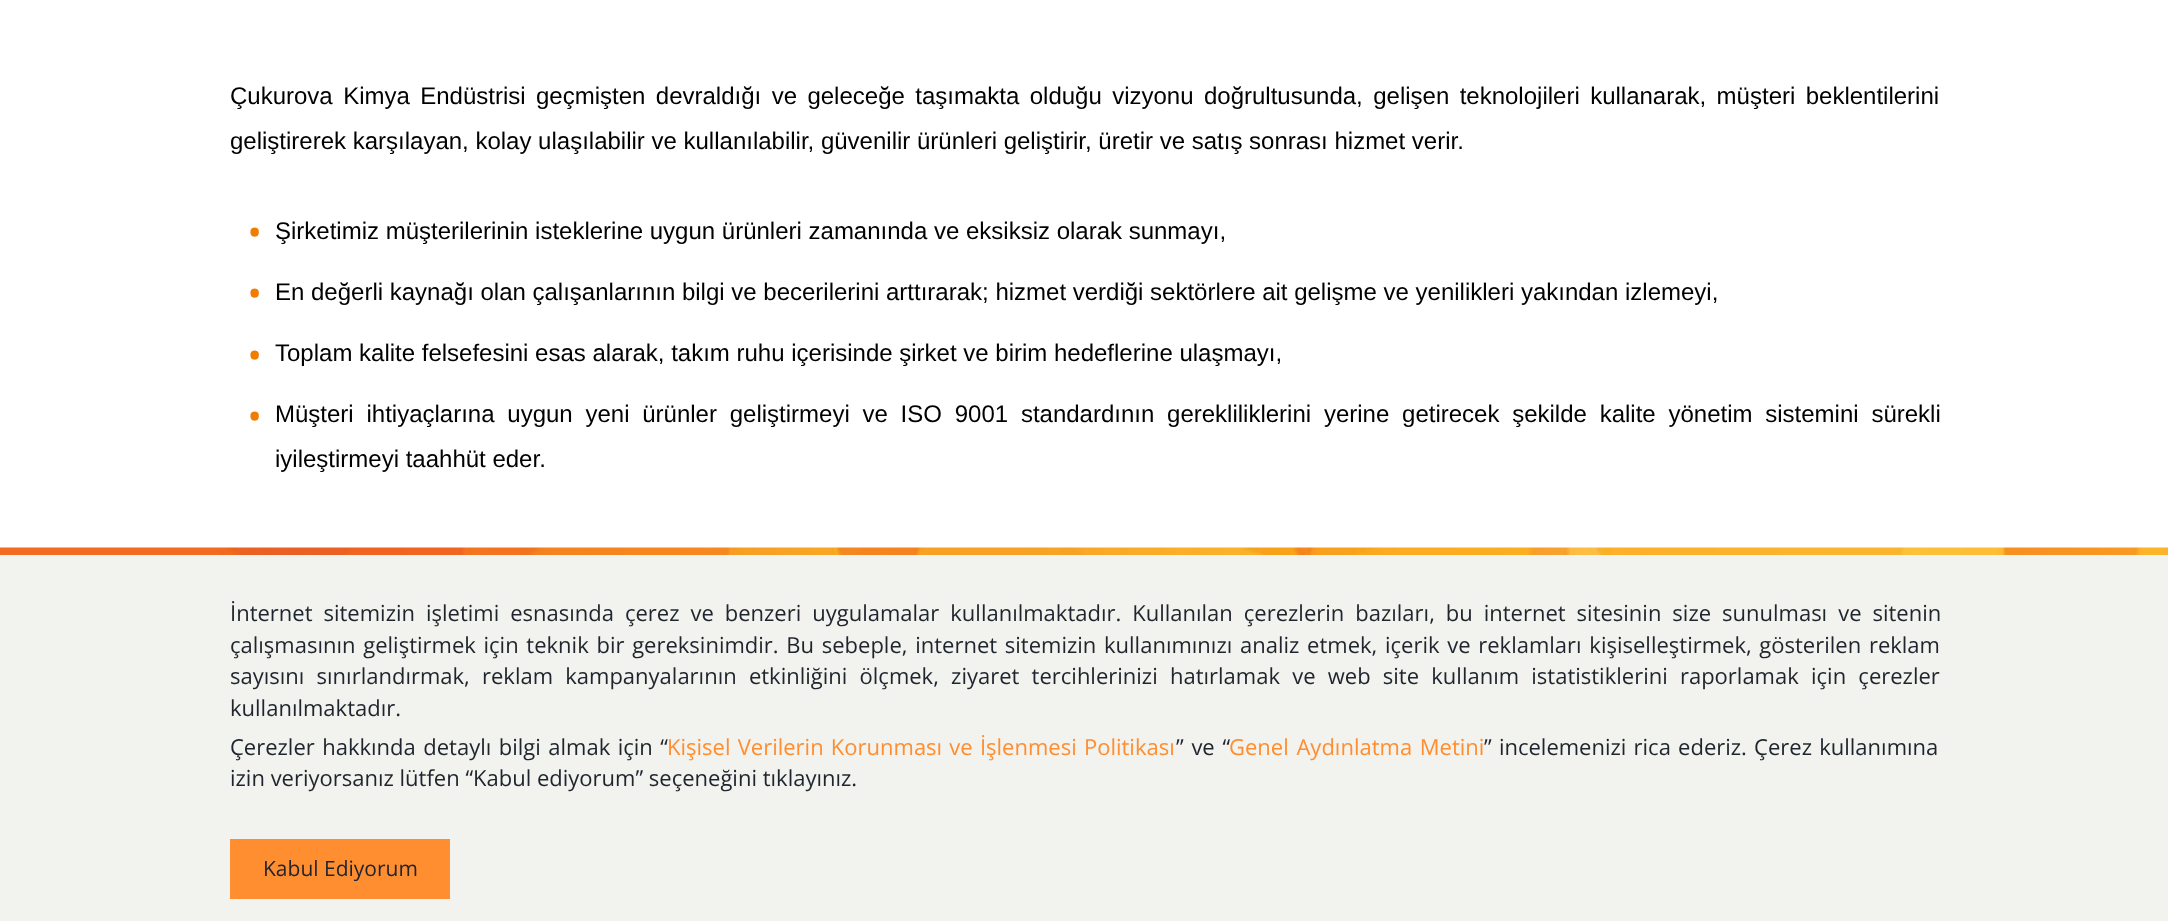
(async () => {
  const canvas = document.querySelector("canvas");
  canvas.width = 2168;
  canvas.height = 921;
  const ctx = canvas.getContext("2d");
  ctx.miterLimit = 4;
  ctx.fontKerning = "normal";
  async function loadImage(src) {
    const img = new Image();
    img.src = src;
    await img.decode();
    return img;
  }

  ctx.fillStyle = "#ffffff";
  ctx.fillRect(0, 0, 2168, 921);
  ctx.fillStyle = "#f2f2ee";
  ctx.fillRect(0, 555, 2168, 366);
  ctx.drawImage(await loadImage("img/1.png"), 0, 547, 2168, 8);
  ctx.fillStyle = "#ff8e31";
  ctx.fillRect(230, 839, 220, 60);
  ctx.wordSpacing = "3.75px";
  ctx.font = "24px Liberation Sans";
  ctx.fillStyle = "#000000";
  ctx.fillText("Çukurova Kimya Endüstrisi geçmişten devraldığı ve geleceğe taşımakta olduğu vizyonu doğrultusunda, gelişen teknolojileri kullanarak, müşteri beklentilerini", 230, 104);
  ctx.wordSpacing = "0px";
  ctx.fillText("geliştirerek karşılayan, kolay ulaşılabilir ve kullanılabilir, güvenilir ürünleri geliştirir, üretir ve satış sonrası hizmet verir.", 230, 149);
  ctx.font = "bold 30px Open Sans";
  ctx.fillStyle = "#f07d00";
  ctx.fillText("•", 249, 243);
  ctx.font = "24px Liberation Sans";
  ctx.fillStyle = "#000000";
  ctx.fillText("Şirketimiz müşterilerinin isteklerine uygun ürünleri zamanında ve eksiksiz olarak sunmayı,", 275, 239);
  ctx.font = "bold 30px Open Sans";
  ctx.fillStyle = "#f07d00";
  ctx.fillText("•", 249, 304);
  ctx.font = "24px Liberation Sans";
  ctx.fillStyle = "#000000";
  ctx.fillText("En değerli kaynağı olan çalışanlarının bilgi ve becerilerini arttırarak; hizmet verdiği sektörlere ait gelişme ve yenilikleri yakından izlemeyi,", 275, 300);
  ctx.font = "bold 30px Open Sans";
  ctx.fillStyle = "#f07d00";
  ctx.fillText("•", 249, 366);
  ctx.font = "24px Liberation Sans";
  ctx.fillStyle = "#000000";
  ctx.fillText("Toplam kalite felsefesini esas alarak, takım ruhu içerisinde şirket ve birim hedeflerine ulaşmayı,", 275, 361);
  ctx.font = "bold 30px Open Sans";
  ctx.fillStyle = "#f07d00";
  ctx.fillText("•", 249, 427);
  ctx.wordSpacing = "6.1px";
  ctx.font = "24px Liberation Sans";
  ctx.fillStyle = "#000000";
  ctx.fillText("Müşteri ihtiyaçlarına uygun yeni ürünler geliştirmeyi ve ISO 9001 standardının gerekliliklerini yerine getirecek şekilde kalite yönetim sistemini sürekli", 275, 422);
  ctx.wordSpacing = "0px";
  ctx.fillText("iyileştirmeyi taahhüt eder.", 275, 467);
  ctx.wordSpacing = "5.25px";
  ctx.font = "22px Open Sans";
  ctx.fillStyle = "#1f252e";
  ctx.fillText("İnternet sitemizin işletimi esnasında çerez ve benzeri uygulamalar kullanılmaktadır. Kullanılan çerezlerin bazıları, bu internet sitesinin size sunulması ve sitenin", 230, 621);
  ctx.wordSpacing = "2px";
  ctx.fillText("çalışmasının geliştirmek için teknik bir gereksinimdir. Bu sebeple, internet sitemizin kullanımınızı analiz etmek, içerik ve reklamları kişiselleştirmek, gösterilen reklam", 230, 653);
  ctx.wordSpacing = "6.5px";
  ctx.fillText("sayısını sınırlandırmak, reklam kampanyalarının etkinliğini ölçmek, ziyaret tercihlerinizi hatırlamak ve web site kullanım istatistiklerini raporlamak için çerezler", 230, 684);
  ctx.wordSpacing = "0px";
  ctx.fillText("kullanılmaktadır.", 230, 716);
  ctx.wordSpacing = "1.75px";
  ctx.fillText("Çerezler hakkında detaylı bilgi almak için “", 230, 755);
  ctx.wordSpacing = "1.5px";
  ctx.fillStyle = "#ff8e31";
  ctx.fillText("Kişisel Verilerin Korunması ve İşlenmesi Politikası", 667, 755);
  ctx.wordSpacing = "2px";
  ctx.fillStyle = "#1f252e";
  ctx.fillText("” ve “", 1176, 755);
  ctx.fillStyle = "#ff8e31";
  ctx.fillText("Genel Aydınlatma Metini", 1229, 755);
  ctx.wordSpacing = "1.5px";
  ctx.fillStyle = "#1f252e";
  ctx.fillText("” incelemenizi rica ederiz. Çerez kullanımına", 1484, 755);
  ctx.wordSpacing = "0px";
  ctx.fillText("izin veriyorsanız lütfen “Kabul ediyorum” seçeneğini tıklayınız.", 230, 786);
  ctx.font = "21px Open Sans";
  ctx.fillText("Kabul Ediyorum", 263, 876);
})();
